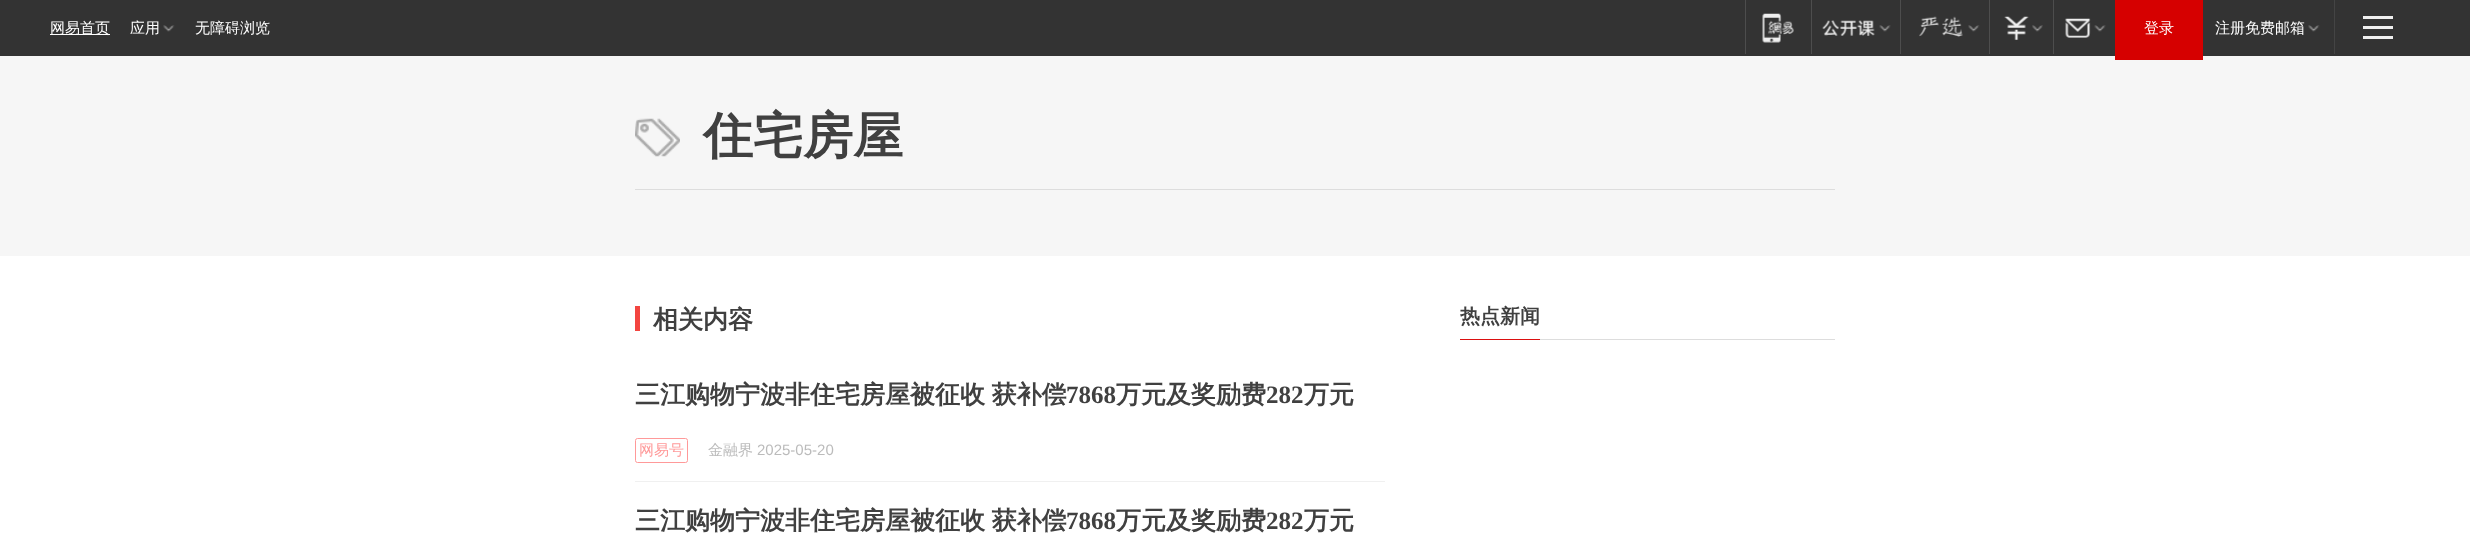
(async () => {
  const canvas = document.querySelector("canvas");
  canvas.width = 2470;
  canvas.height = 550;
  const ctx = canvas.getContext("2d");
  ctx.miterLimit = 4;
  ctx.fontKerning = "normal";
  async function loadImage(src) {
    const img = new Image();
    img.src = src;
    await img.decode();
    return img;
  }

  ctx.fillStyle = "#ffffff";
  ctx.fillRect(0, 0, 2470, 550);
  ctx.fillStyle = "#333333";
  ctx.fillRect(0, 0, 2470, 56);
  ctx.fillStyle = "#ffffff";
  ctx.fillRect(50, 34, 60, 1);
  ctx.drawImage(await loadImage("img/1.png"), 163, 25, 12, 7);
  ctx.fillStyle = "#4d4d4d";
  ctx.fillRect(1745, 0, 1, 54);
  ctx.drawImage(await loadImage("img/2.png"), 1762, 13, 32, 30);
  ctx.fillRect(1811, 0, 1, 54);
  ctx.drawImage(await loadImage("img/3.png"), 1822, 20, 53, 16);
  ctx.drawImage(await loadImage("img/4.png"), 1879, 25, 12, 7);
  ctx.fillRect(1900, 0, 1, 54);
  ctx.drawImage(await loadImage("img/5.png"), 1919, 16, 44, 21);
  ctx.drawImage(await loadImage("img/1.png"), 1968, 25, 12, 7);
  ctx.fillRect(1989, 0, 1, 54);
  ctx.drawImage(await loadImage("img/6.png"), 2004, 16, 25, 24);
  ctx.drawImage(await loadImage("img/7.png"), 2032, 25, 11, 7);
  ctx.fillRect(2053, 0, 1, 54);
  ctx.drawImage(await loadImage("img/8.png"), 2065, 18, 26, 20);
  ctx.drawImage(await loadImage("img/4.png"), 2094, 25, 12, 7);
  ctx.fillStyle = "#f6f6f6";
  ctx.fillRect(0, 56, 2470, 200);
  ctx.fillStyle = "#d60000";
  ctx.fillRect(2115, 0, 88, 60);
  ctx.drawImage(await loadImage("img/1.png"), 2308, 25, 12, 7);
  for (const [x, y, w, h, color] of [
    [2334, 0, 1, 54, "#444444"],
    [2363, 16, 30, 3, "#efefef"],
    [2363, 26, 30, 3, "#efefef"],
    [2363, 36, 30, 3, "#efefef"],
  ]) {
    ctx.fillStyle = color;
    ctx.fillRect(x, y, w, h);
  }
  ctx.drawImage(await loadImage("img/9.png"), 635, 118, 45, 39);
  for (const [x, y, w, h, color] of [
    [635, 189, 1200, 1, "#dddddd"],
    [635, 306, 5, 25, "#f34540"],
    [635, 481, 750, 1, "#f0f0f0"],
  ]) {
    ctx.fillStyle = color;
    ctx.fillRect(x, y, w, h);
  }
  ctx.beginPath();
  ctx.roundRect(635.5, 438.5, 52, 24, 2);
  ctx.strokeStyle = "#ff9999";
  ctx.stroke();
  ctx.fillStyle = "#dddddd";
  ctx.fillRect(1540, 339, 295, 1);
  ctx.fillStyle = "#db1011";
  ctx.fillRect(1460, 339, 80, 1);
  ctx.font = "500 15px WenQuanYi Zen Hei";
  ctx.fillStyle = "#ffffff";
  for (const [text, x, y] of [
    ["网易首页", 50, 33],
    ["应用", 130, 33],
    ["无障碍浏览", 195, 33],
    ["登录", 2144, 33],
    ["注册免费邮箱", 2215, 33],
  ]) {
    ctx.fillText(text, x, y);
  }
  ctx.font = "bold 50px WenQuanYi Zen Hei";
  ctx.fillStyle = "#404040";
  ctx.fillText("住宅房屋", 703, 153);
  ctx.font = "bold 25px WenQuanYi Zen Hei";
  ctx.fillText("相关内容", 653, 328);
  ctx.wordSpacing = "-1px";
  ctx.fillText("三江购物宁波非住宅房屋被征收 获补偿", 635, 403);
  ctx.wordSpacing = "0px";
  ctx.font = "bold 25px Liberation Serif";
  ctx.fillText("7868", 1066, 403);
  ctx.font = "bold 25px WenQuanYi Zen Hei";
  ctx.fillText("万元及奖励费", 1116, 403);
  ctx.font = "bold 25px Liberation Serif";
  ctx.fillText("282", 1266, 403);
  ctx.font = "bold 25px WenQuanYi Zen Hei";
  ctx.fillText("万元", 1304, 403);
  ctx.font = "500 15px WenQuanYi Zen Hei";
  ctx.fillStyle = "#ff9999";
  ctx.fillText("网易号", 639, 455);
  ctx.fillStyle = "#bbbbbb";
  ctx.fillText("金融界", 708, 455);
  ctx.font = "15px Liberation Sans";
  ctx.fillText("2025-05-20", 757, 455);
  ctx.wordSpacing = "-1px";
  ctx.font = "bold 25px WenQuanYi Zen Hei";
  ctx.fillStyle = "#404040";
  ctx.fillText("三江购物宁波非住宅房屋被征收 获补偿", 635, 529);
  ctx.wordSpacing = "0px";
  ctx.font = "bold 25px Liberation Serif";
  ctx.fillText("7868", 1066, 529);
  ctx.font = "bold 25px WenQuanYi Zen Hei";
  ctx.fillText("万元及奖励费", 1116, 529);
  ctx.font = "bold 25px Liberation Serif";
  ctx.fillText("282", 1266, 529);
  ctx.font = "bold 25px WenQuanYi Zen Hei";
  ctx.fillText("万元", 1304, 529);
  ctx.font = "bold 20px WenQuanYi Zen Hei";
  ctx.fillText("热点新闻", 1460, 323);
})();
